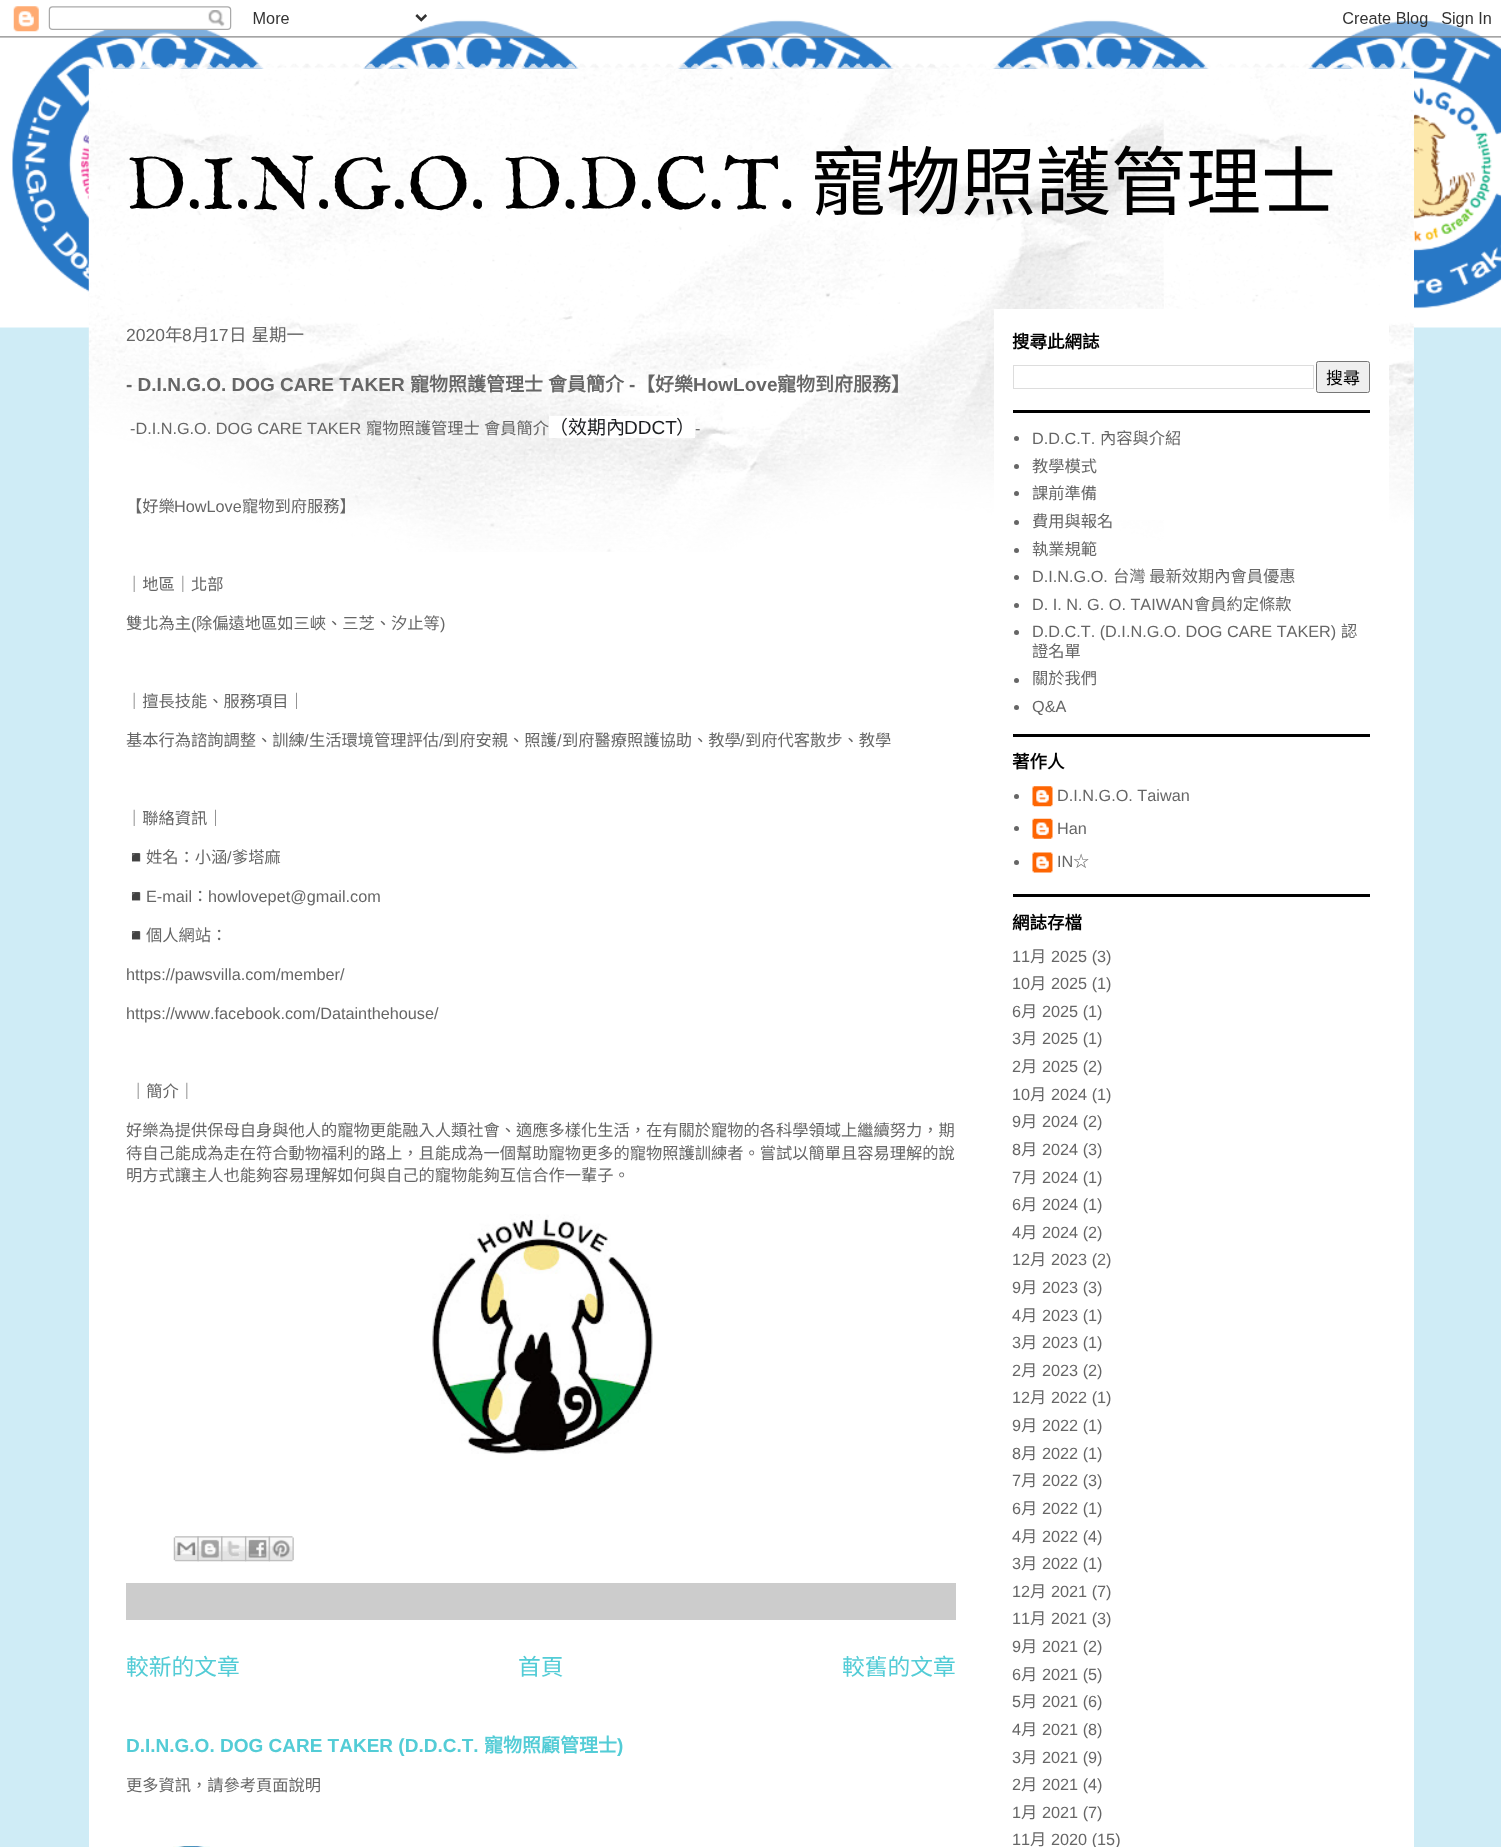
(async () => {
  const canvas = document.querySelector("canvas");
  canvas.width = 1501;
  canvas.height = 1847;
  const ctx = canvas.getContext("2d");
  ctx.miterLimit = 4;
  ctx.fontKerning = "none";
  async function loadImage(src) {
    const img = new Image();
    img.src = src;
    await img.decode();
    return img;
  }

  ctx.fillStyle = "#cfecf6";
  ctx.fillRect(0, 0, 1501, 1847);
  ctx.drawImage(await loadImage("img/1.png"), 0, 0, 1501, 328);
  ctx.drawImage(await loadImage("img/2.png"), 0, 6, 1501, 32);
  ctx.drawImage(await loadImage("img/3.png"), 88, 63, 1324, 6);
  ctx.fillStyle = "#ffffff";
  ctx.fillRect(89, 69, 1325, 1778);
  ctx.drawImage(await loadImage("img/4.png"), 88, 68, 1326, 484);
  ctx.fillRect(994, 309, 395, 211);
  ctx.fillRect(549, 416, 146, 22);
  ctx.drawImage(await loadImage("img/5.png"), 432, 1214, 221, 240);
  ctx.drawImage(await loadImage("img/6.png"), 173, 1536, 26, 26);
  ctx.drawImage(await loadImage("img/7.png"), 197, 1536, 26, 26);
  ctx.drawImage(await loadImage("img/8.png"), 221, 1536, 26, 26);
  ctx.drawImage(await loadImage("img/9.png"), 245, 1536, 25, 26);
  ctx.drawImage(await loadImage("img/10.png"), 268, 1536, 26, 26);
  ctx.fillStyle = "#cccccc";
  ctx.fillRect(126, 1583, 830, 37);
  ctx.drawImage(await loadImage("img/11.png"), 173, 1846, 37, 1);
  ctx.fillStyle = "#000000";
  ctx.fillRect(1013, 410, 357, 3);
  ctx.strokeStyle = "#dddddd";
  ctx.strokeRect(1013.5, 365.5, 300, 23);
  ctx.fillStyle = "#efefef";
  ctx.beginPath();
  ctx.roundRect(1316.5, 361.5, 53, 31, 2);
  ctx.fill();
  ctx.strokeStyle = "#767676";
  ctx.stroke();
  ctx.fillStyle = "#000000";
  ctx.fillRect(1013, 734, 357, 3);
  ctx.fillStyle = "#666666";
  ctx.beginPath();
  ctx.arc(1016.5, 438.5, 2.5, 0, Math.PI * 2);
  ctx.fill();
  ctx.beginPath();
  ctx.arc(1016.5, 466.5, 2.5, 0, Math.PI * 2);
  ctx.fill();
  ctx.beginPath();
  ctx.arc(1016.5, 493.5, 2.5, 0, Math.PI * 2);
  ctx.fill();
  ctx.beginPath();
  ctx.arc(1016.5, 522.5, 2.5, 0, Math.PI * 2);
  ctx.fill();
  ctx.beginPath();
  ctx.arc(1016.5, 550.5, 2.5, 0, Math.PI * 2);
  ctx.fill();
  ctx.beginPath();
  ctx.arc(1016.5, 577.5, 2.5, 0, Math.PI * 2);
  ctx.fill();
  ctx.beginPath();
  ctx.arc(1016.5, 605.5, 2.5, 0, Math.PI * 2);
  ctx.fill();
  ctx.beginPath();
  ctx.arc(1016.5, 632.5, 2.5, 0, Math.PI * 2);
  ctx.fill();
  ctx.beginPath();
  ctx.arc(1016.5, 680.5, 2.5, 0, Math.PI * 2);
  ctx.fill();
  ctx.beginPath();
  ctx.arc(1016.5, 707.5, 2.5, 0, Math.PI * 2);
  ctx.fill();
  ctx.fillStyle = "#000000";
  ctx.fillRect(1013, 894, 357, 3);
  ctx.fillStyle = "#666666";
  ctx.beginPath();
  ctx.arc(1016.5, 796.5, 2.5, 0, Math.PI * 2);
  ctx.fill();
  ctx.drawImage(await loadImage("img/12.png"), 1032, 786, 21, 21);
  ctx.beginPath();
  ctx.arc(1016.5, 828.5, 2.5, 0, Math.PI * 2);
  ctx.fill();
  ctx.drawImage(await loadImage("img/13.png"), 1032, 818, 21, 21);
  ctx.beginPath();
  ctx.arc(1016.5, 862.5, 2.5, 0, Math.PI * 2);
  ctx.fill();
  ctx.drawImage(await loadImage("img/14.png"), 1032, 852, 21, 21);
  ctx.font = "75px IM FELL English";
  ctx.fillStyle = "#000000";
  ctx.fillText("D.I.N.G.O. D.D.C.T.", 126, 209);
  ctx.font = "75px Noto Sans CJK TC";
  ctx.fillText("寵物照護管理士", 811, 209);
  ctx.font = "17.5px Liberation Sans";
  ctx.fillStyle = "#666666";
  ctx.fillText("2020", 126, 341);
  ctx.font = "17.5px Noto Sans CJK TC";
  ctx.fillText("年", 165, 341);
  ctx.font = "17.5px Liberation Sans";
  ctx.fillText("8", 182, 341);
  ctx.font = "17.5px Noto Sans CJK TC";
  ctx.fillText("月", 192, 341);
  ctx.font = "17.5px Liberation Sans";
  ctx.fillText("17", 209, 341);
  ctx.wordSpacing = "1px";
  ctx.font = "17.5px Noto Sans CJK TC";
  ctx.fillText("日 星期一", 229, 341);
  ctx.wordSpacing = "0px";
  ctx.font = "bold 19px Liberation Sans";
  ctx.fillText("- D.I.N.G.O. DOG CARE TAKER", 126, 391);
  ctx.font = "bold 19px Noto Sans CJK TC";
  ctx.fillText("寵物照護管理士", 410, 391);
  ctx.fillText("會員簡介", 548, 391);
  ctx.font = "bold 19px Liberation Sans";
  ctx.fillText("-", 629, 391);
  ctx.font = "bold 19px Noto Sans CJK TC";
  ctx.fillText("【好樂", 636, 391);
  ctx.font = "bold 19px Liberation Sans";
  ctx.fillText("HowLove", 693, 391);
  ctx.font = "bold 19px Noto Sans CJK TC";
  ctx.fillText("寵物到府服務】", 777, 391);
  ctx.font = "16.25px Liberation Sans";
  ctx.fillText("-D.I.N.G.O. DOG CARE TAKER", 130, 434);
  ctx.font = "16.25px Noto Sans CJK TC";
  ctx.fillText("寵物照護管理士", 366, 434);
  ctx.fillText("會員簡介", 484, 434);
  ctx.font = "19px Noto Sans CJK TC";
  ctx.fillStyle = "#1c1e21";
  ctx.fillText("（效期內", 549, 434);
  ctx.font = "19px Liberation Sans";
  ctx.fillText("DDCT", 624, 434);
  ctx.font = "19px Noto Sans CJK TC";
  ctx.fillText("）", 676, 434);
  ctx.font = "16.25px Liberation Sans";
  ctx.fillStyle = "#666666";
  ctx.fillText("-", 695, 434);
  ctx.font = "16.25px Noto Sans CJK TC";
  ctx.fillText("【好樂", 126, 512);
  ctx.font = "16.25px Liberation Sans";
  ctx.fillText("HowLove", 174, 512);
  ctx.font = "16.25px Noto Sans CJK TC";
  for (const [text, x, y] of [
    ["寵物到府服務】", 242, 512],
    ["｜地區｜北部", 126, 590],
    ["雙北為主", 126, 629],
  ]) {
    ctx.fillText(text, x, y);
  }
  ctx.font = "16.25px Liberation Sans";
  ctx.fillText("(", 191, 629);
  ctx.font = "16.25px Noto Sans CJK TC";
  ctx.fillText("除偏遠地區如三峽、三芝、汐止等", 196, 629);
  ctx.font = "16.25px Liberation Sans";
  ctx.fillText(")", 440, 629);
  ctx.font = "16.25px Noto Sans CJK TC";
  ctx.fillText("｜擅長技能、服務項目｜", 126, 707);
  ctx.fillText("基本行為諮詢調整、訓練", 126, 746);
  ctx.font = "16.25px Liberation Sans";
  ctx.fillText("/", 304, 746);
  ctx.font = "16.25px Noto Sans CJK TC";
  ctx.fillText("生活環境管理評估", 309, 746);
  ctx.font = "16.25px Liberation Sans";
  ctx.fillText("/", 439, 746);
  ctx.font = "16.25px Noto Sans CJK TC";
  ctx.fillText("到府安親、照護", 443, 746);
  ctx.font = "16.25px Liberation Sans";
  ctx.fillText("/", 557, 746);
  ctx.font = "16.25px Noto Sans CJK TC";
  ctx.fillText("到府醫療照護協助、教學", 562, 746);
  ctx.font = "16.25px Liberation Sans";
  ctx.fillText("/", 740, 746);
  ctx.font = "16.25px Noto Sans CJK TC";
  ctx.fillText("到府代客散步、教學", 745, 746);
  ctx.fillText("｜聯絡資訊｜", 126, 824);
  ctx.font = "16.25px Noto Color Emoji";
  ctx.fillText("◾", 126, 863);
  ctx.font = "16.25px Noto Sans CJK TC";
  ctx.fillText("姓名：小涵", 146, 863);
  ctx.font = "16.25px Liberation Sans";
  ctx.fillText("/", 227, 863);
  ctx.font = "16.25px Noto Sans CJK TC";
  ctx.fillText("爹塔麻", 232, 863);
  ctx.font = "16.25px Noto Color Emoji";
  ctx.fillText("◾", 126, 902);
  ctx.font = "16.25px Liberation Sans";
  ctx.fillText("E-mail", 146, 902);
  ctx.font = "16.25px Noto Sans CJK TC";
  ctx.fillText("：", 192, 902);
  ctx.font = "16.25px Liberation Sans";
  ctx.fillText("howlovepet@gmail.com", 208, 902);
  ctx.font = "16.25px Noto Color Emoji";
  ctx.fillText("◾", 126, 941);
  ctx.font = "16.25px Noto Sans CJK TC";
  ctx.fillText("個人網站：", 146, 941);
  ctx.font = "16.25px Liberation Sans";
  ctx.fillText("https://pawsvilla.com/member/", 126, 980);
  ctx.fillText("https://www.facebook.com/Datainthehouse/", 126, 1019);
  ctx.font = "16.25px Noto Sans CJK TC";
  for (const [text, x, y] of [
    ["｜簡介｜", 130, 1097],
    ["好樂為提供保母自身與他人的寵物更能融入人類社會、適應多樣化生活，在有關於寵物的各科學領域上繼續努力，期", 126, 1136],
    ["待自己能成為走在符合動物福利的路上，且能成為一個幫助寵物更多的寵物照護訓練者。嘗試以簡單且容易理解的說", 126, 1159],
    ["明方式讓主人也能夠容易理解如何與自己的寵物能夠互信合作一輩子。", 126, 1181],
  ]) {
    ctx.fillText(text, x, y);
  }
  ctx.font = "22.75px Noto Sans CJK TC";
  ctx.fillStyle = "#53ccd6";
  for (const [text, x, y] of [
    ["較新的文章", 126, 1675],
    ["首頁", 518, 1675],
    ["較舊的文章", 842, 1675],
  ]) {
    ctx.fillText(text, x, y);
  }
  ctx.font = "bold 19px Liberation Sans";
  ctx.fillText("D.I.N.G.O. DOG CARE TAKER (D.D.C.T.", 126, 1752);
  ctx.font = "bold 19px Noto Sans CJK TC";
  ctx.fillText("寵物照顧管理士", 484, 1752);
  ctx.font = "bold 19px Liberation Sans";
  ctx.fillText(")", 617, 1752);
  ctx.font = "16.25px Noto Sans CJK TC";
  ctx.fillStyle = "#666666";
  ctx.fillText("更多資訊，請參考頁面說明", 126, 1791);
  ctx.font = "bold 17.5px Noto Sans CJK TC";
  ctx.fillStyle = "#000000";
  ctx.fillText("搜尋此網誌", 1012, 348);
  ctx.font = "17px Noto Sans CJK TC";
  ctx.fillText("搜尋", 1326, 384);
  ctx.font = "16.25px Liberation Sans";
  ctx.fillStyle = "#666666";
  ctx.fillText("D.D.C.T.", 1032, 444);
  ctx.font = "16.25px Noto Sans CJK TC";
  for (const [text, x, y] of [
    ["內容與介紹", 1100, 444],
    ["教學模式", 1032, 472],
    ["課前準備", 1032, 499],
    ["費用與報名", 1032, 527],
    ["執業規範", 1032, 555],
  ]) {
    ctx.fillText(text, x, y);
  }
  ctx.font = "16.25px Liberation Sans";
  ctx.fillText("D.I.N.G.O.", 1032, 582);
  ctx.font = "16.25px Noto Sans CJK TC";
  ctx.fillText("台灣 最新效期內會員優惠", 1113, 582);
  ctx.font = "16.25px Liberation Sans";
  ctx.fillText("D. I. N. G. O. TAIWAN", 1032, 610);
  ctx.font = "16.25px Noto Sans CJK TC";
  ctx.fillText("會員約定條款", 1194, 610);
  ctx.font = "16.25px Liberation Sans";
  ctx.fillText("D.D.C.T. (D.I.N.G.O. DOG CARE TAKER)", 1032, 637);
  ctx.font = "16.25px Noto Sans CJK TC";
  for (const [text, x, y] of [
    ["認", 1341, 637],
    ["證名單", 1032, 657],
    ["關於我們", 1032, 684],
  ]) {
    ctx.fillText(text, x, y);
  }
  ctx.font = "16.25px Liberation Sans";
  ctx.fillText("Q&A", 1032, 712);
  ctx.font = "bold 17.5px Noto Sans CJK TC";
  ctx.fillStyle = "#000000";
  ctx.fillText("著作人", 1012, 768);
  ctx.font = "16.25px Liberation Sans";
  ctx.fillStyle = "#666666";
  for (const [text, x, y] of [
    ["D.I.N.G.O. Taiwan", 1057, 801],
    ["Han", 1057, 834],
    ["IN", 1057, 867],
  ]) {
    ctx.fillText(text, x, y);
  }
  ctx.font = "16.25px Noto Sans CJK TC";
  ctx.fillText("☆", 1073, 867);
  ctx.font = "bold 17.5px Noto Sans CJK TC";
  ctx.fillStyle = "#000000";
  ctx.fillText("網誌存檔", 1012, 929);
  ctx.font = "16.25px Liberation Sans";
  ctx.fillStyle = "#666666";
  ctx.fillText("11", 1012, 962);
  ctx.font = "16.25px Noto Sans CJK TC";
  ctx.fillText("月", 1030, 962);
  ctx.font = "16.25px Liberation Sans";
  ctx.fillText("2025 (3)", 1051, 962);
  ctx.fillText("10", 1012, 989);
  ctx.font = "16.25px Noto Sans CJK TC";
  ctx.fillText("月", 1030, 989);
  ctx.font = "16.25px Liberation Sans";
  ctx.fillText("2025 (1)", 1051, 989);
  ctx.fillText("6", 1012, 1017);
  ctx.font = "16.25px Noto Sans CJK TC";
  ctx.fillText("月", 1021, 1017);
  ctx.font = "16.25px Liberation Sans";
  ctx.fillText("2025 (1)", 1042, 1017);
  ctx.fillText("3", 1012, 1044);
  ctx.font = "16.25px Noto Sans CJK TC";
  ctx.fillText("月", 1021, 1044);
  ctx.font = "16.25px Liberation Sans";
  ctx.fillText("2025 (1)", 1042, 1044);
  ctx.fillText("2", 1012, 1072);
  ctx.font = "16.25px Noto Sans CJK TC";
  ctx.fillText("月", 1021, 1072);
  ctx.font = "16.25px Liberation Sans";
  ctx.fillText("2025 (2)", 1042, 1072);
  ctx.fillText("10", 1012, 1100);
  ctx.font = "16.25px Noto Sans CJK TC";
  ctx.fillText("月", 1030, 1100);
  ctx.font = "16.25px Liberation Sans";
  ctx.fillText("2024 (1)", 1051, 1100);
  ctx.fillText("9", 1012, 1127);
  ctx.font = "16.25px Noto Sans CJK TC";
  ctx.fillText("月", 1021, 1127);
  ctx.font = "16.25px Liberation Sans";
  ctx.fillText("2024 (2)", 1042, 1127);
  ctx.fillText("8", 1012, 1155);
  ctx.font = "16.25px Noto Sans CJK TC";
  ctx.fillText("月", 1021, 1155);
  ctx.font = "16.25px Liberation Sans";
  ctx.fillText("2024 (3)", 1042, 1155);
  ctx.fillText("7", 1012, 1183);
  ctx.font = "16.25px Noto Sans CJK TC";
  ctx.fillText("月", 1021, 1183);
  ctx.font = "16.25px Liberation Sans";
  ctx.fillText("2024 (1)", 1042, 1183);
  ctx.fillText("6", 1012, 1210);
  ctx.font = "16.25px Noto Sans CJK TC";
  ctx.fillText("月", 1021, 1210);
  ctx.font = "16.25px Liberation Sans";
  ctx.fillText("2024 (1)", 1042, 1210);
  ctx.fillText("4", 1012, 1238);
  ctx.font = "16.25px Noto Sans CJK TC";
  ctx.fillText("月", 1021, 1238);
  ctx.font = "16.25px Liberation Sans";
  ctx.fillText("2024 (2)", 1042, 1238);
  ctx.fillText("12", 1012, 1265);
  ctx.font = "16.25px Noto Sans CJK TC";
  ctx.fillText("月", 1030, 1265);
  ctx.font = "16.25px Liberation Sans";
  ctx.fillText("2023 (2)", 1051, 1265);
  ctx.fillText("9", 1012, 1293);
  ctx.font = "16.25px Noto Sans CJK TC";
  ctx.fillText("月", 1021, 1293);
  ctx.font = "16.25px Liberation Sans";
  ctx.fillText("2023 (3)", 1042, 1293);
  ctx.fillText("4", 1012, 1321);
  ctx.font = "16.25px Noto Sans CJK TC";
  ctx.fillText("月", 1021, 1321);
  ctx.font = "16.25px Liberation Sans";
  ctx.fillText("2023 (1)", 1042, 1321);
  ctx.fillText("3", 1012, 1348);
  ctx.font = "16.25px Noto Sans CJK TC";
  ctx.fillText("月", 1021, 1348);
  ctx.font = "16.25px Liberation Sans";
  ctx.fillText("2023 (1)", 1042, 1348);
  ctx.fillText("2", 1012, 1376);
  ctx.font = "16.25px Noto Sans CJK TC";
  ctx.fillText("月", 1021, 1376);
  ctx.font = "16.25px Liberation Sans";
  ctx.fillText("2023 (2)", 1042, 1376);
  ctx.fillText("12", 1012, 1403);
  ctx.font = "16.25px Noto Sans CJK TC";
  ctx.fillText("月", 1030, 1403);
  ctx.font = "16.25px Liberation Sans";
  ctx.fillText("2022 (1)", 1051, 1403);
  ctx.fillText("9", 1012, 1431);
  ctx.font = "16.25px Noto Sans CJK TC";
  ctx.fillText("月", 1021, 1431);
  ctx.font = "16.25px Liberation Sans";
  ctx.fillText("2022 (1)", 1042, 1431);
  ctx.fillText("8", 1012, 1459);
  ctx.font = "16.25px Noto Sans CJK TC";
  ctx.fillText("月", 1021, 1459);
  ctx.font = "16.25px Liberation Sans";
  ctx.fillText("2022 (1)", 1042, 1459);
  ctx.fillText("7", 1012, 1486);
  ctx.font = "16.25px Noto Sans CJK TC";
  ctx.fillText("月", 1021, 1486);
  ctx.font = "16.25px Liberation Sans";
  ctx.fillText("2022 (3)", 1042, 1486);
  ctx.fillText("6", 1012, 1514);
  ctx.font = "16.25px Noto Sans CJK TC";
  ctx.fillText("月", 1021, 1514);
  ctx.font = "16.25px Liberation Sans";
  ctx.fillText("2022 (1)", 1042, 1514);
  ctx.fillText("4", 1012, 1542);
  ctx.font = "16.25px Noto Sans CJK TC";
  ctx.fillText("月", 1021, 1542);
  ctx.font = "16.25px Liberation Sans";
  ctx.fillText("2022 (4)", 1042, 1542);
  ctx.fillText("3", 1012, 1569);
  ctx.font = "16.25px Noto Sans CJK TC";
  ctx.fillText("月", 1021, 1569);
  ctx.font = "16.25px Liberation Sans";
  ctx.fillText("2022 (1)", 1042, 1569);
  ctx.fillText("12", 1012, 1597);
  ctx.font = "16.25px Noto Sans CJK TC";
  ctx.fillText("月", 1030, 1597);
  ctx.font = "16.25px Liberation Sans";
  ctx.fillText("2021 (7)", 1051, 1597);
  ctx.fillText("11", 1012, 1624);
  ctx.font = "16.25px Noto Sans CJK TC";
  ctx.fillText("月", 1030, 1624);
  ctx.font = "16.25px Liberation Sans";
  ctx.fillText("2021 (3)", 1051, 1624);
  ctx.fillText("9", 1012, 1652);
  ctx.font = "16.25px Noto Sans CJK TC";
  ctx.fillText("月", 1021, 1652);
  ctx.font = "16.25px Liberation Sans";
  ctx.fillText("2021 (2)", 1042, 1652);
  ctx.fillText("6", 1012, 1680);
  ctx.font = "16.25px Noto Sans CJK TC";
  ctx.fillText("月", 1021, 1680);
  ctx.font = "16.25px Liberation Sans";
  ctx.fillText("2021 (5)", 1042, 1680);
  ctx.fillText("5", 1012, 1707);
  ctx.font = "16.25px Noto Sans CJK TC";
  ctx.fillText("月", 1021, 1707);
  ctx.font = "16.25px Liberation Sans";
  ctx.fillText("2021 (6)", 1042, 1707);
  ctx.fillText("4", 1012, 1735);
  ctx.font = "16.25px Noto Sans CJK TC";
  ctx.fillText("月", 1021, 1735);
  ctx.font = "16.25px Liberation Sans";
  ctx.fillText("2021 (8)", 1042, 1735);
  ctx.fillText("3", 1012, 1763);
  ctx.font = "16.25px Noto Sans CJK TC";
  ctx.fillText("月", 1021, 1763);
  ctx.font = "16.25px Liberation Sans";
  ctx.fillText("2021 (9)", 1042, 1763);
  ctx.fillText("2", 1012, 1790);
  ctx.font = "16.25px Noto Sans CJK TC";
  ctx.fillText("月", 1021, 1790);
  ctx.font = "16.25px Liberation Sans";
  ctx.fillText("2021 (4)", 1042, 1790);
  ctx.fillText("1", 1012, 1818);
  ctx.font = "16.25px Noto Sans CJK TC";
  ctx.fillText("月", 1021, 1818);
  ctx.font = "16.25px Liberation Sans";
  ctx.fillText("2021 (7)", 1042, 1818);
  ctx.fillText("11", 1012, 1845);
  ctx.font = "16.25px Noto Sans CJK TC";
  ctx.fillText("月", 1030, 1845);
  ctx.font = "16.25px Liberation Sans";
  ctx.fillText("2020 (15)", 1051, 1845);
})();
